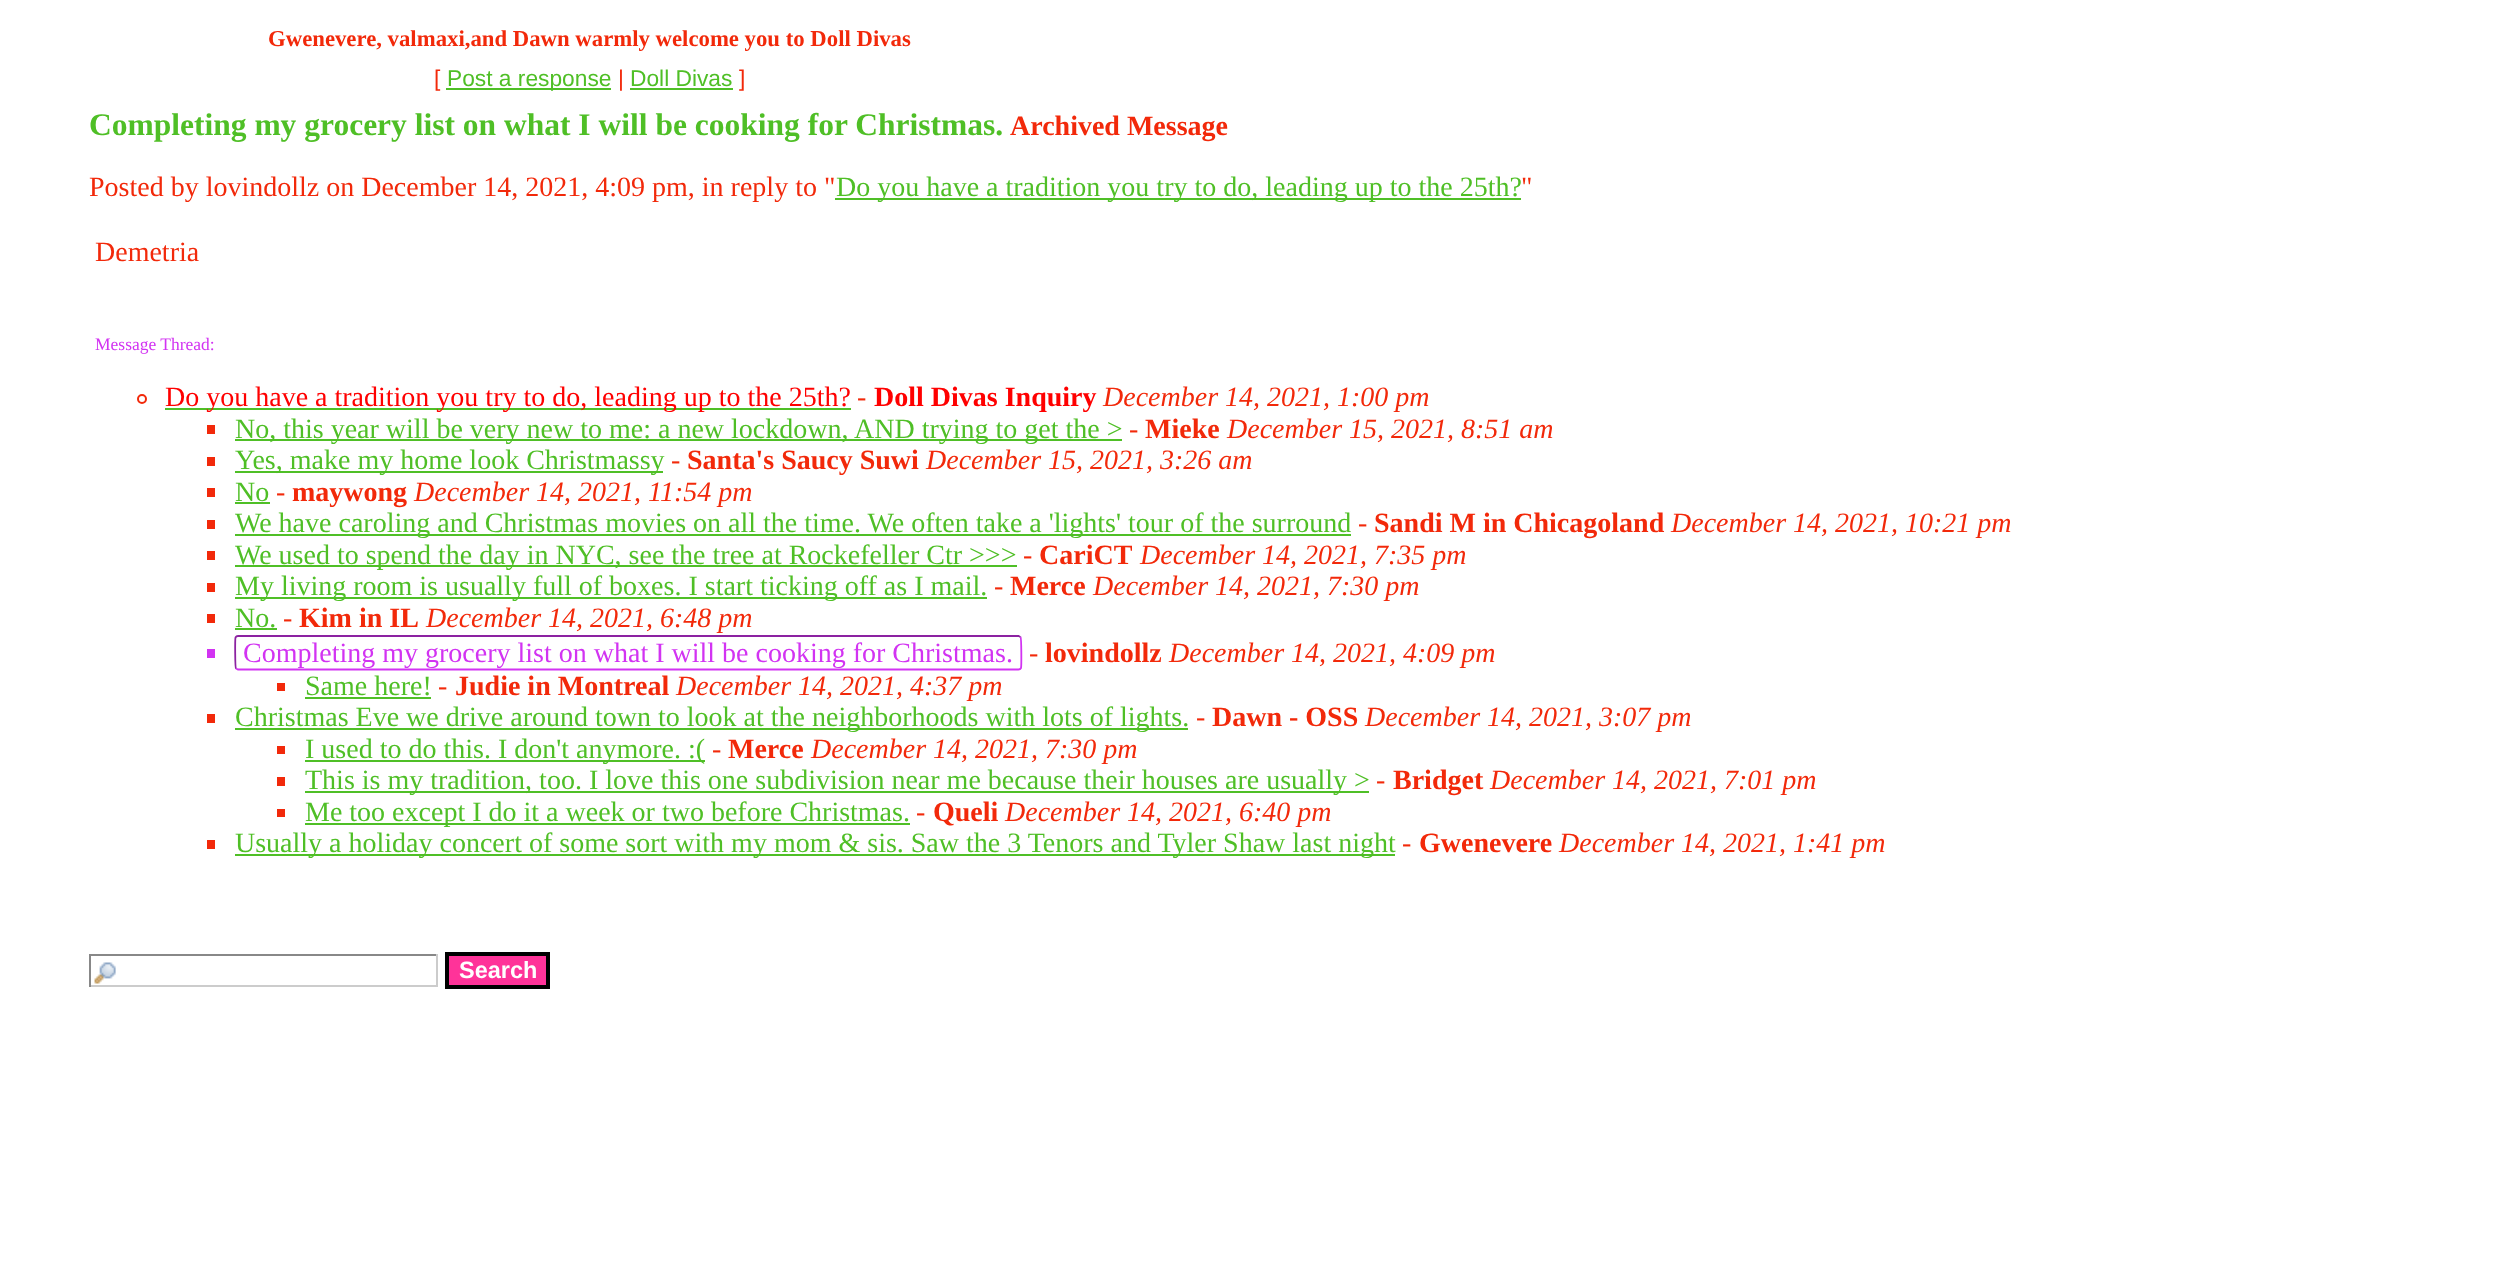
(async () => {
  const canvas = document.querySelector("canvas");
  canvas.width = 2513;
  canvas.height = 1271;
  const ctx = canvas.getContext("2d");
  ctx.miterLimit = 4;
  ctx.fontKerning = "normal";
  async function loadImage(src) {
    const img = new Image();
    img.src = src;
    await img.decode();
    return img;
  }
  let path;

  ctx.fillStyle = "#ffffff";
  ctx.fillRect(0, 0, 2513, 1271);
  for (const [x, y, w, h, color] of [
    [446, 88, 165, 2, "#4fbf26"],
    [630, 88, 103, 2, "#4fbf26"],
    [835, 198, 686, 2, "#4fbf26"],
  ]) {
    ctx.fillStyle = color;
    ctx.fillRect(x, y, w, h);
  }
  ctx.beginPath();
  ctx.arc(142, 399, 4, 0, Math.PI * 2);
  ctx.strokeStyle = "#f2290a";
  ctx.lineWidth = 2;
  ctx.stroke();
  for (const [x, y, w, h, color] of [
    [165, 408, 686, 2, "#4fbf26"],
    [207, 425, 8, 9, "#f2290a"],
    [235, 439, 887, 2, "#4fbf26"],
    [207, 457, 8, 9, "#f2290a"],
    [235, 471, 428, 2, "#4fbf26"],
    [207, 488, 8, 9, "#f2290a"],
    [235, 502, 35, 2, "#4fbf26"],
    [207, 520, 8, 9, "#f2290a"],
    [235, 534, 1116, 2, "#4fbf26"],
    [207, 551, 8, 9, "#f2290a"],
    [235, 565, 782, 2, "#4fbf26"],
    [207, 583, 8, 9, "#f2290a"],
    [235, 597, 752, 2, "#4fbf26"],
    [207, 614, 8, 9, "#f2290a"],
    [235, 628, 42, 2, "#4fbf26"],
    [207, 649, 8, 9, "#d233f2"],
  ]) {
    ctx.fillStyle = color;
    ctx.fillRect(x, y, w, h);
  }
  path = new Path2D("M1020.5 637C1021.5 638 1021.5 666.5 1021 668C1020.5 669 1019.5 669.5 1018.5 669.5H238L236 668.5");
  ctx.strokeStyle = "#d233f2";
  ctx.lineWidth = 1.8;
  ctx.stroke(path);
  path = new Path2D("M236 668.5C235 667.5 235 639 235.5 637.5C236 636.5 237 636 238 636H1018.5L1020.5 637");
  ctx.strokeStyle = "#8c22a1";
  ctx.stroke(path);
  for (const [x, y, w, h, color] of [
    [277, 683, 8, 8, "#f2290a"],
    [305, 697, 126, 2, "#4fbf26"],
    [207, 714, 8, 9, "#f2290a"],
    [235, 728, 953, 2, "#4fbf26"],
    [277, 746, 8, 8, "#f2290a"],
    [305, 760, 400, 2, "#4fbf26"],
    [277, 777, 8, 9, "#f2290a"],
    [305, 791, 1064, 2, "#4fbf26"],
    [277, 809, 8, 8, "#f2290a"],
    [305, 823, 605, 2, "#4fbf26"],
    [207, 840, 8, 9, "#f2290a"],
    [235, 854, 1160, 2, "#4fbf26"],
  ]) {
    ctx.fillStyle = color;
    ctx.fillRect(x, y, w, h);
  }
  ctx.drawImage(await loadImage("img/1.png"), 94, 962, 22, 22);
  for (const [x, y, w, h, color] of [
    [89, 954, 349, 2, "#888888"],
    [436, 954, 2, 33, "#cccccc"],
    [89, 985, 349, 2, "#cccccc"],
    [89, 954, 2, 33, "#888888"],
  ]) {
    ctx.fillStyle = color;
    ctx.fillRect(x, y, w, h);
  }
  ctx.fillStyle = "#ff3399";
  ctx.beginPath();
  ctx.rect(447, 954, 101, 33);
  ctx.fill();
  ctx.strokeStyle = "#000000";
  ctx.lineWidth = 4;
  ctx.stroke();
  ctx.font = "bold 22.75px Liberation Serif";
  ctx.fillStyle = "#f2290a";
  ctx.fillText("Gwenevere, valmaxi,and Dawn warmly welcome you to Doll Divas", 268, 46);
  ctx.font = "22.75px Liberation Sans";
  ctx.fillText("[", 434, 86);
  ctx.fillStyle = "#4fbf26";
  ctx.fillText("Post a response", 447, 86);
  ctx.fillStyle = "#f2290a";
  ctx.fillText("|", 618, 86);
  ctx.fillStyle = "#4fbf26";
  ctx.fillText("Doll Divas", 630, 86);
  ctx.fillStyle = "#f2290a";
  ctx.fillText("]", 739, 86);
  ctx.font = "bold 31.5px Liberation Serif";
  ctx.fillStyle = "#4fbf26";
  ctx.fillText("Completing my grocery list on what I will be cooking for Christmas.", 89, 135);
  ctx.font = "bold 28px Liberation Serif";
  ctx.fillStyle = "#f2290a";
  ctx.fillText("Archived Message", 1010, 135);
  ctx.font = "28px Liberation Serif";
  ctx.fillText("Posted by lovindollz on December 14, 2021, 4:09 pm, in reply to \"", 89, 196);
  ctx.fillStyle = "#4fbf26";
  ctx.fillText("Do you have a tradition you try to do, leading up to the 25th?", 836, 196);
  ctx.fillStyle = "#f2290a";
  ctx.fillText("\"", 1521, 196);
  ctx.fillText("Demetria", 95, 261);
  ctx.font = "17.5px Liberation Serif";
  ctx.fillStyle = "#d233f2";
  ctx.fillText("Message Thread:", 95, 350);
  ctx.font = "28px Liberation Serif";
  ctx.fillStyle = "#ff0000";
  ctx.fillText("Do you have a tradition you try to do, leading up to the 25th?", 165, 406);
  ctx.fillStyle = "#f2290a";
  ctx.fillText("-", 857, 406);
  ctx.font = "bold 28px Liberation Serif";
  ctx.fillStyle = "#ff0000";
  ctx.fillText("Doll Divas Inquiry", 874, 406);
  ctx.font = "italic 28px Liberation Serif";
  ctx.fillStyle = "#f2290a";
  ctx.fillText("December 14, 2021, 1:00 pm", 1103, 406);
  ctx.font = "28px Liberation Serif";
  ctx.fillStyle = "#4fbf26";
  ctx.fillText("No, this year will be very new to me: a new lockdown, AND trying to get the >", 235, 438);
  ctx.fillStyle = "#f2290a";
  ctx.fillText("-", 1129, 438);
  ctx.font = "bold 28px Liberation Serif";
  ctx.fillText("Mieke", 1145, 438);
  ctx.font = "italic 28px Liberation Serif";
  ctx.fillText("December 15, 2021, 8:51 am", 1227, 438);
  ctx.font = "28px Liberation Serif";
  ctx.fillStyle = "#4fbf26";
  ctx.fillText("Yes, make my home look Christmassy", 235, 469);
  ctx.fillStyle = "#f2290a";
  ctx.fillText("-", 671, 469);
  ctx.font = "bold 28px Liberation Serif";
  ctx.fillText("Santa's Saucy Suwi", 687, 469);
  ctx.font = "italic 28px Liberation Serif";
  ctx.fillText("December 15, 2021, 3:26 am", 926, 469);
  ctx.font = "28px Liberation Serif";
  ctx.fillStyle = "#4fbf26";
  ctx.fillText("No", 235, 501);
  ctx.fillStyle = "#f2290a";
  ctx.fillText("-", 276, 501);
  ctx.font = "bold 28px Liberation Serif";
  ctx.fillText("maywong", 292, 501);
  ctx.font = "italic 28px Liberation Serif";
  ctx.fillText("December 14, 2021, 11:54 pm", 414, 501);
  ctx.font = "28px Liberation Serif";
  ctx.fillStyle = "#4fbf26";
  ctx.fillText("We have caroling and Christmas movies on all the time. We often take a 'lights' tour of the surround", 235, 532);
  ctx.fillStyle = "#f2290a";
  ctx.fillText("-", 1358, 532);
  ctx.font = "bold 28px Liberation Serif";
  ctx.fillText("Sandi M in Chicagoland", 1374, 532);
  ctx.font = "italic 28px Liberation Serif";
  ctx.fillText("December 14, 2021, 10:21 pm", 1671, 532);
  ctx.font = "28px Liberation Serif";
  ctx.fillStyle = "#4fbf26";
  ctx.fillText("We used to spend the day in NYC, see the tree at Rockefeller Ctr >>>", 235, 564);
  ctx.fillStyle = "#f2290a";
  ctx.fillText("-", 1023, 564);
  ctx.font = "bold 28px Liberation Serif";
  ctx.fillText("CariCT", 1039, 564);
  ctx.font = "italic 28px Liberation Serif";
  ctx.fillText("December 14, 2021, 7:35 pm", 1140, 564);
  ctx.font = "28px Liberation Serif";
  ctx.fillStyle = "#4fbf26";
  ctx.fillText("My living room is usually full of boxes. I start ticking off as I mail.", 235, 595);
  ctx.fillStyle = "#f2290a";
  ctx.fillText("-", 994, 595);
  ctx.font = "bold 28px Liberation Serif";
  ctx.fillText("Merce", 1010, 595);
  ctx.font = "italic 28px Liberation Serif";
  ctx.fillText("December 14, 2021, 7:30 pm", 1093, 595);
  ctx.font = "28px Liberation Serif";
  ctx.fillStyle = "#4fbf26";
  ctx.fillText("No.", 235, 627);
  ctx.fillStyle = "#f2290a";
  ctx.fillText("-", 283, 627);
  ctx.font = "bold 28px Liberation Serif";
  ctx.fillText("Kim in IL", 299, 627);
  ctx.font = "italic 28px Liberation Serif";
  ctx.fillText("December 14, 2021, 6:48 pm", 426, 627);
  ctx.font = "28px Liberation Serif";
  ctx.fillStyle = "#d233f2";
  ctx.fillText("Completing my grocery list on what I will be cooking for Christmas.", 243, 662);
  ctx.fillStyle = "#f2290a";
  ctx.fillText("-", 1029, 662);
  ctx.font = "bold 28px Liberation Serif";
  ctx.fillText("lovindollz", 1045, 662);
  ctx.font = "italic 28px Liberation Serif";
  ctx.fillText("December 14, 2021, 4:09 pm", 1169, 662);
  ctx.font = "28px Liberation Serif";
  ctx.fillStyle = "#4fbf26";
  ctx.fillText("Same here!", 305, 695);
  ctx.fillStyle = "#f2290a";
  ctx.fillText("-", 438, 695);
  ctx.font = "bold 28px Liberation Serif";
  ctx.fillText("Judie in Montreal", 455, 695);
  ctx.font = "italic 28px Liberation Serif";
  ctx.fillText("December 14, 2021, 4:37 pm", 676, 695);
  ctx.font = "28px Liberation Serif";
  ctx.fillStyle = "#4fbf26";
  ctx.fillText("Christmas Eve we drive around town to look at the neighborhoods with lots of lights.", 235, 726);
  ctx.fillStyle = "#f2290a";
  ctx.fillText("-", 1196, 726);
  ctx.font = "bold 28px Liberation Serif";
  ctx.fillText("Dawn - OSS", 1212, 726);
  ctx.font = "italic 28px Liberation Serif";
  ctx.fillText("December 14, 2021, 3:07 pm", 1365, 726);
  ctx.font = "28px Liberation Serif";
  ctx.fillStyle = "#4fbf26";
  ctx.fillText("I used to do this. I don't anymore. :(", 305, 758);
  ctx.fillStyle = "#f2290a";
  ctx.fillText("-", 712, 758);
  ctx.font = "bold 28px Liberation Serif";
  ctx.fillText("Merce", 728, 758);
  ctx.font = "italic 28px Liberation Serif";
  ctx.fillText("December 14, 2021, 7:30 pm", 811, 758);
  ctx.font = "28px Liberation Serif";
  ctx.fillStyle = "#4fbf26";
  ctx.fillText("This is my tradition, too. I love this one subdivision near me because their houses are usually >", 305, 789);
  ctx.fillStyle = "#f2290a";
  ctx.fillText("-", 1376, 789);
  ctx.font = "bold 28px Liberation Serif";
  ctx.fillText("Bridget", 1393, 789);
  ctx.font = "italic 28px Liberation Serif";
  ctx.fillText("December 14, 2021, 7:01 pm", 1490, 789);
  ctx.font = "28px Liberation Serif";
  ctx.fillStyle = "#4fbf26";
  ctx.fillText("Me too except I do it a week or two before Christmas.", 305, 821);
  ctx.fillStyle = "#f2290a";
  ctx.fillText("-", 916, 821);
  ctx.font = "bold 28px Liberation Serif";
  ctx.fillText("Queli", 933, 821);
  ctx.font = "italic 28px Liberation Serif";
  ctx.fillText("December 14, 2021, 6:40 pm", 1005, 821);
  ctx.font = "28px Liberation Serif";
  ctx.fillStyle = "#4fbf26";
  ctx.fillText("Usually a holiday concert of some sort with my mom & sis. Saw the 3 Tenors and Tyler Shaw last night", 235, 852);
  ctx.fillStyle = "#f2290a";
  ctx.fillText("-", 1402, 852);
  ctx.font = "bold 28px Liberation Serif";
  ctx.fillText("Gwenevere", 1419, 852);
  ctx.font = "italic 28px Liberation Serif";
  ctx.fillText("December 14, 2021, 1:41 pm", 1559, 852);
  ctx.font = "bold 23.5px Liberation Sans";
  ctx.fillStyle = "#ffffff";
  ctx.fillText("Search", 459, 978);
})();
